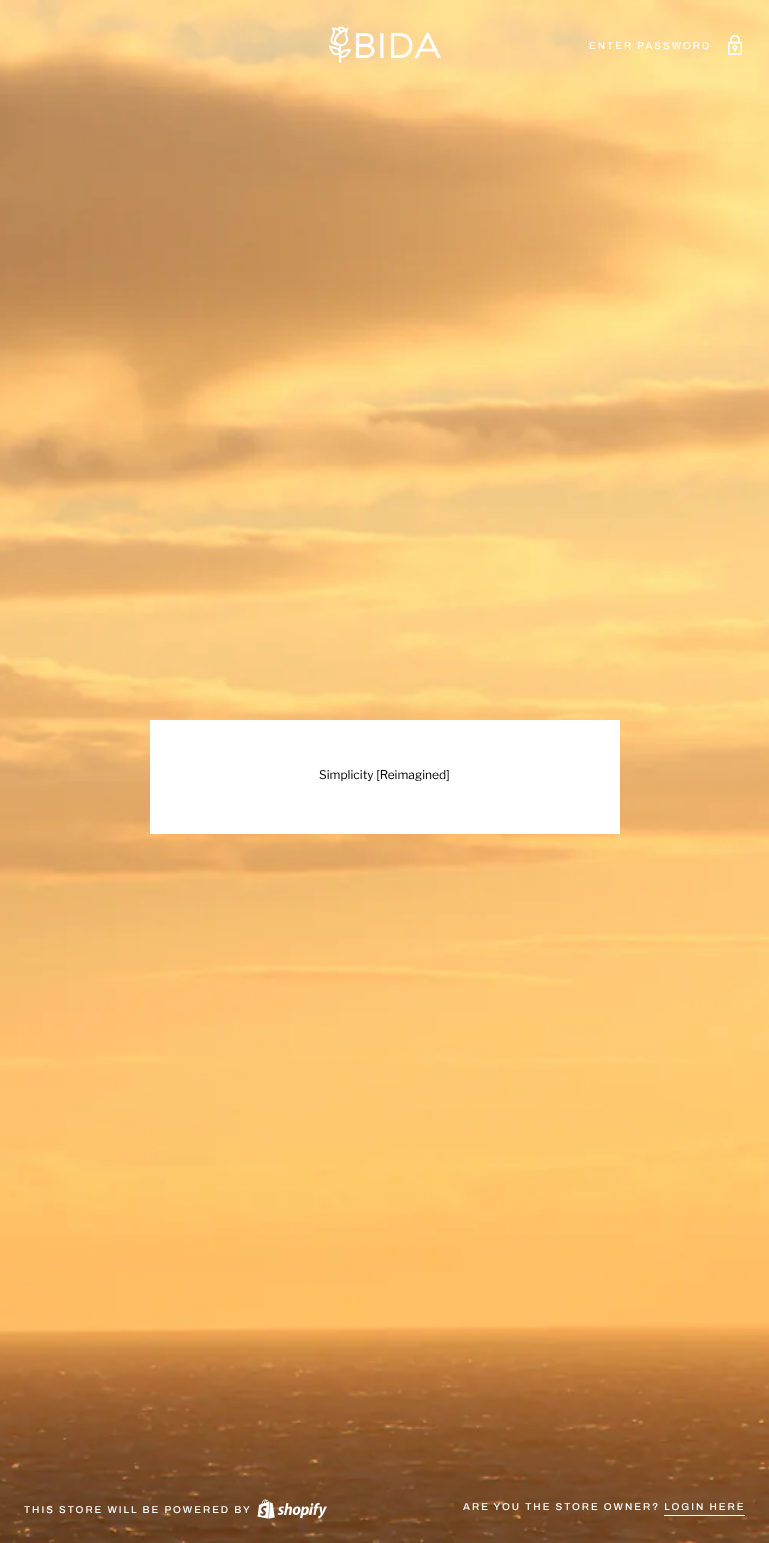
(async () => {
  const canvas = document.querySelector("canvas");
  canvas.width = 769;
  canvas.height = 1543;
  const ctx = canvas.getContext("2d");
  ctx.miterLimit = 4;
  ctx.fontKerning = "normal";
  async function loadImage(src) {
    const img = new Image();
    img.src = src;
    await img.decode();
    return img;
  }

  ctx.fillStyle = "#ffffff";
  ctx.fillRect(0, 0, 769, 1543);
  ctx.drawImage(await loadImage("img/1.png"), 0, 0, 769, 1543);
  ctx.drawImage(await loadImage("img/2.png"), 328, 26, 113, 37);
  ctx.drawImage(await loadImage("img/3.png"), 728, 35, 14, 20);
  ctx.fillRect(150, 720, 470, 114);
  ctx.drawImage(await loadImage("img/4.png"), 257, 1499, 70, 20);
  ctx.fillRect(664, 1515, 81, 1);
  ctx.letterSpacing = "2px";
  ctx.font = "500 10px Archivo";
  ctx.fillText("ENTER PASSWORD", 589, 49);
  ctx.letterSpacing = "0px";
  ctx.font = "12px Libre Franklin";
  ctx.fillStyle = "#000000";
  ctx.fillText("Simplicity [Reimagined]", 319, 779);
  ctx.letterSpacing = "2px";
  ctx.font = "500 10px Archivo";
  ctx.fillStyle = "#ffffff";
  ctx.fillText("THIS STORE WILL BE POWERED BY", 24, 1513);
  ctx.fillText("ARE YOU THE STORE OWNER? LOGIN HERE", 463, 1510);
})();
